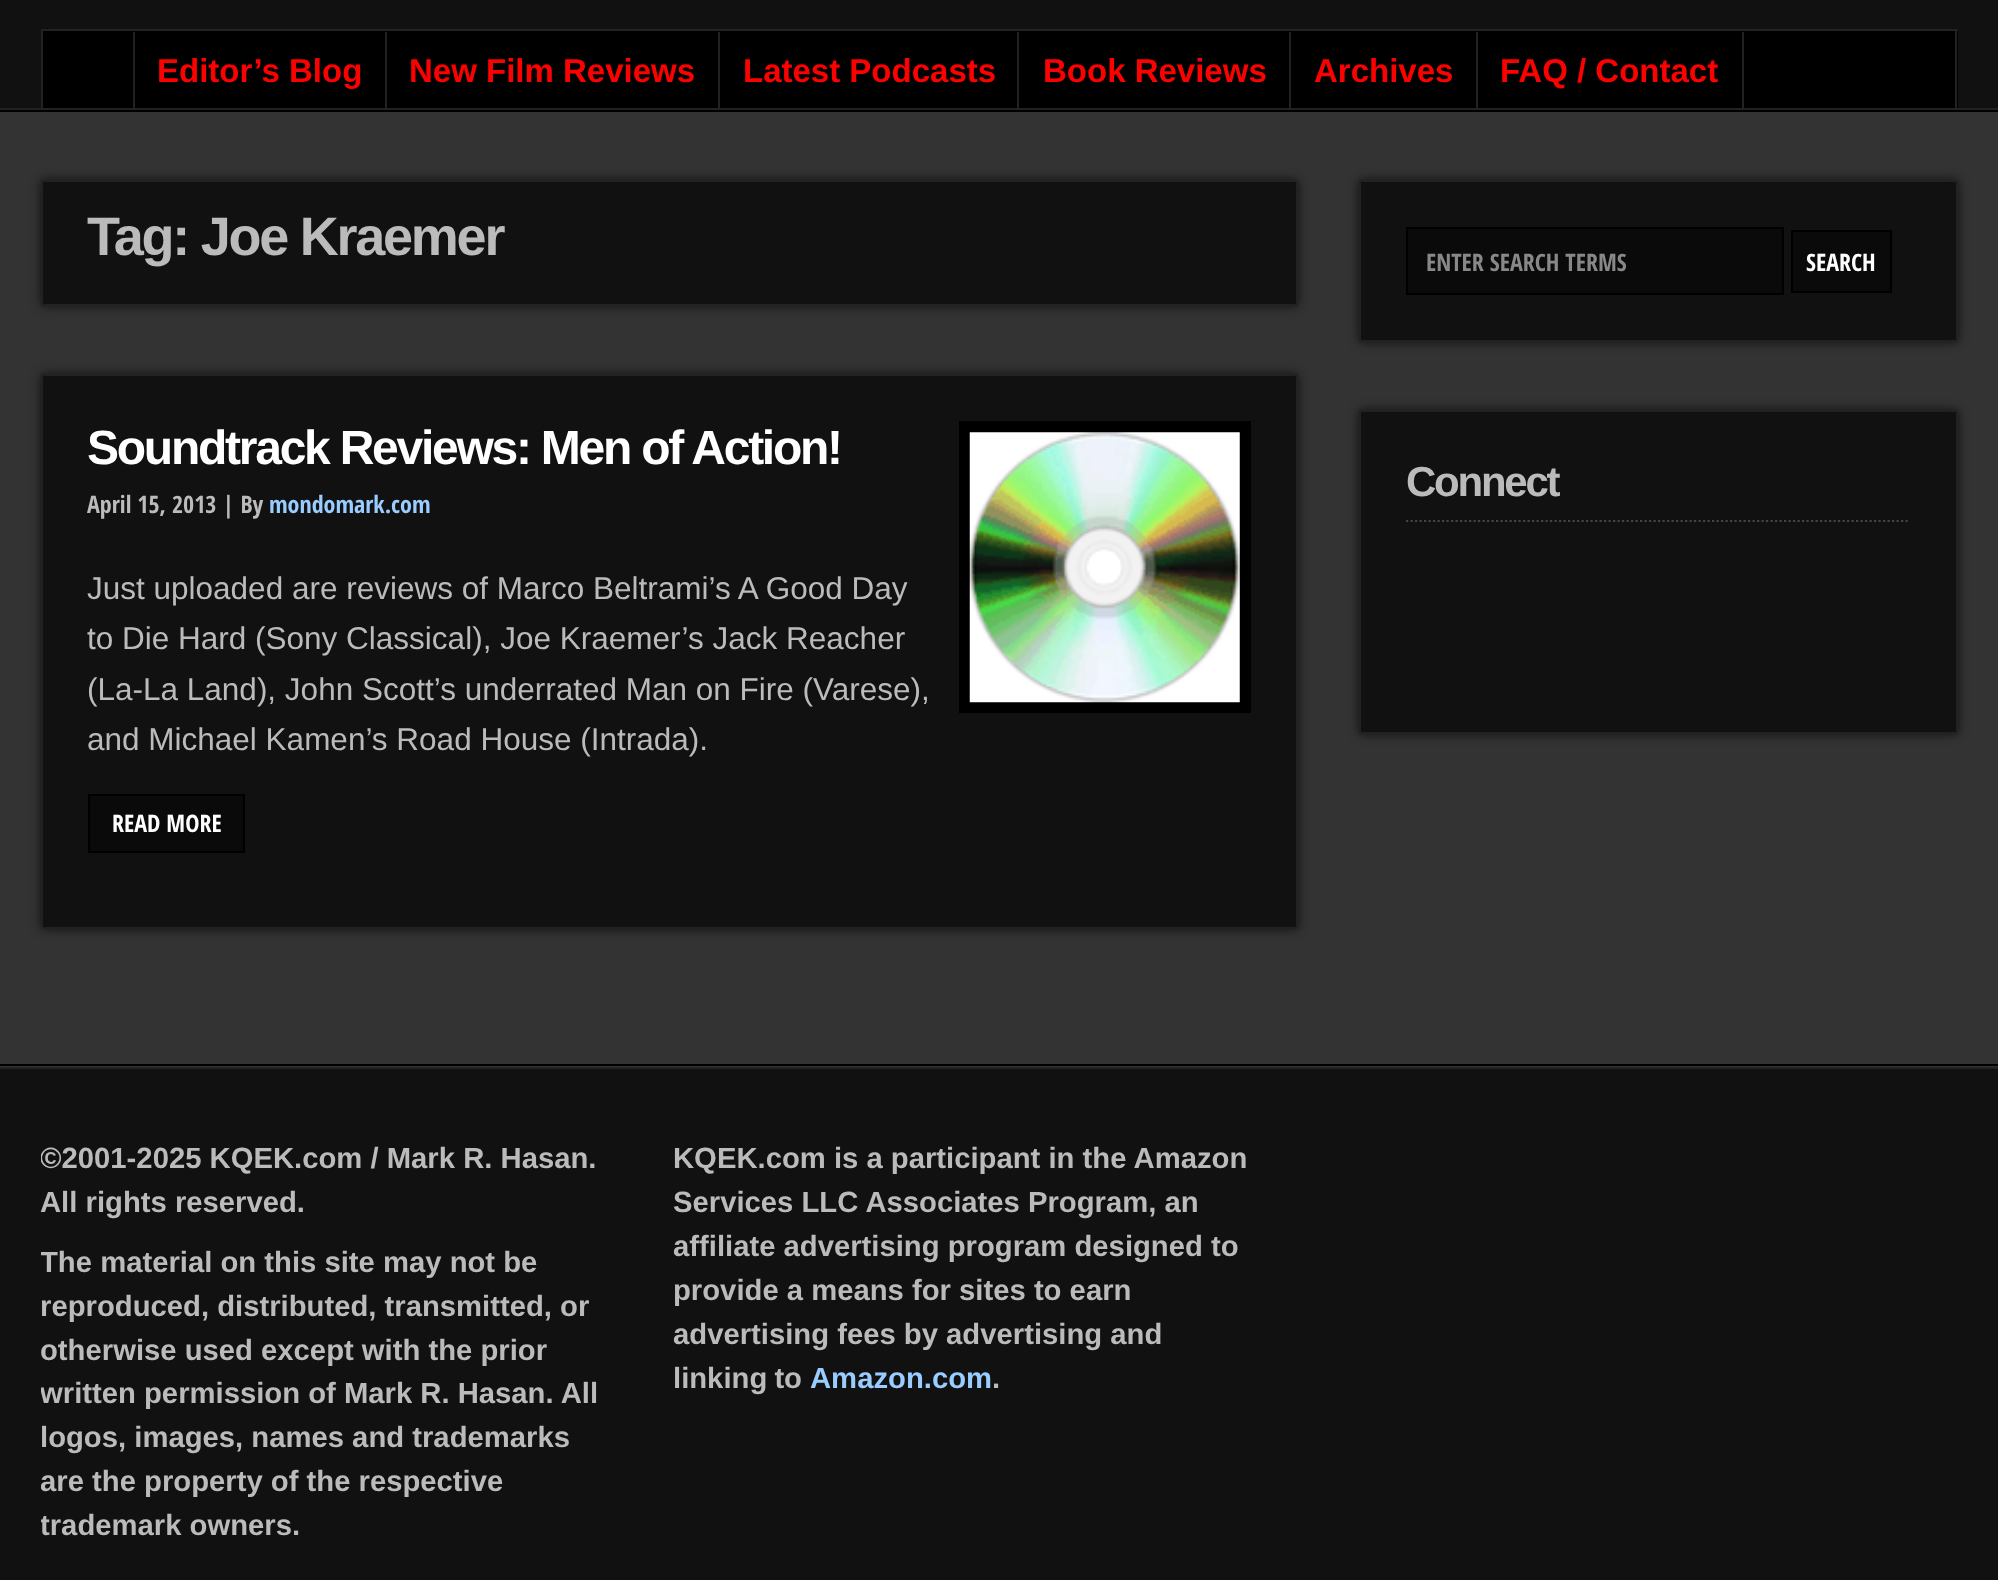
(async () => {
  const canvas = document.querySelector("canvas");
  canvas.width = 1998;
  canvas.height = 1580;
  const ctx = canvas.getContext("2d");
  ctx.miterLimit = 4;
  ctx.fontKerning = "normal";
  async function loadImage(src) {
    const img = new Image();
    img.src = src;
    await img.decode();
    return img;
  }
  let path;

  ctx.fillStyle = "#333333";
  ctx.fillRect(0, 0, 1998, 1580);
  for (const [x, y, w, h, color] of [
    [0, 0, 1998, 108, "#111111"],
    [0, 108, 1998, 2, "#222222"],
    [43, 31, 1915, 77, "#000000"],
    [41, 29, 1917, 2, "#222222"],
    [1955, 29, 2, 79, "#222222"],
    [41, 29, 2, 79, "#222222"],
    [133, 32, 2, 76, "#222222"],
    [385, 32, 2, 76, "#222222"],
    [718, 32, 2, 76, "#222222"],
    [1017, 32, 2, 76, "#222222"],
    [1289, 32, 2, 76, "#222222"],
    [1476, 32, 2, 76, "#222222"],
    [1742, 32, 2, 76, "#222222"],
    [0, 110, 1998, 2, "#000000"],
    [0, 1064, 1998, 2, "#000000"],
  ]) {
    ctx.fillStyle = color;
    ctx.fillRect(x, y, w, h);
  }
  ctx.fillStyle = "rgba(0, 0, 0, 0.7)";
  ctx.filter = "blur(5.5px)";
  ctx.beginPath();
  ctx.rect(41, 180, 1257, 126);
  ctx.fill();
  ctx.filter = "none";
  ctx.fillStyle = "#111111";
  ctx.beginPath();
  ctx.rect(42, 181, 1255, 124);
  ctx.fill();
  ctx.strokeStyle = "#222222";
  ctx.lineWidth = 2;
  ctx.stroke();
  ctx.fillStyle = "rgba(0, 0, 0, 0.7)";
  ctx.filter = "blur(5.5px)";
  ctx.beginPath();
  ctx.rect(41, 374, 1257, 555);
  ctx.fill();
  ctx.filter = "none";
  ctx.fillStyle = "#111111";
  ctx.beginPath();
  ctx.rect(42, 375, 1255, 553);
  ctx.fill();
  ctx.stroke();
  ctx.fillStyle = "#000000";
  ctx.fillRect(959, 421, 292, 292);
  ctx.drawImage(await loadImage("img/1.png"), 969, 432, 271, 271);
  ctx.fillStyle = "#0a0a0a";
  ctx.beginPath();
  ctx.rect(89, 795, 155, 57);
  ctx.fill();
  ctx.strokeStyle = "#000000";
  ctx.stroke();
  ctx.fillStyle = "rgba(0, 0, 0, 0.7)";
  ctx.filter = "blur(5.5px)";
  ctx.beginPath();
  ctx.rect(1359, 180, 599, 162);
  ctx.fill();
  ctx.filter = "none";
  ctx.fillStyle = "#111111";
  ctx.beginPath();
  ctx.rect(1360, 181, 597, 160);
  ctx.fill();
  ctx.strokeStyle = "#222222";
  ctx.stroke();
  ctx.fillStyle = "#0a0a0a";
  ctx.beginPath();
  ctx.rect(1407, 228, 376, 66);
  ctx.fill();
  ctx.strokeStyle = "#000000";
  ctx.stroke();
  ctx.beginPath();
  ctx.rect(1792, 231, 99, 61);
  ctx.fill();
  ctx.stroke();
  ctx.fillStyle = "rgba(0, 0, 0, 0.7)";
  ctx.filter = "blur(5.5px)";
  ctx.beginPath();
  ctx.rect(1359, 410, 599, 324);
  ctx.fill();
  ctx.filter = "none";
  ctx.fillStyle = "#111111";
  ctx.beginPath();
  ctx.rect(1360, 411, 597, 322);
  ctx.fill();
  ctx.strokeStyle = "#222222";
  ctx.stroke();
  path = new Path2D("M1406 521H1910");
  ctx.strokeStyle = "#444444";
  ctx.lineWidth = 2.2;
  ctx.setLineDash([2.25, 2.25]);
  ctx.stroke(path);
  ctx.fillRect(0, 1069, 1998, 511);
  ctx.fillStyle = "#222222";
  ctx.fillRect(0, 1067, 1998, 2);
  ctx.font = "bold 33px Liberation Sans";
  ctx.fillStyle = "#ff0000";
  for (const [text, x, y] of [
    ["Editor’s Blog", 157, 82],
    ["New Film Reviews", 409, 82],
    ["Latest Podcasts", 743, 82],
    ["Book Reviews", 1043, 82],
    ["Archives", 1314, 82],
    ["FAQ / Contact", 1500, 82],
  ]) {
    ctx.fillText(text, x, y);
  }
  ctx.letterSpacing = "-2.25px";
  ctx.font = "bold 54px Liberation Sans";
  ctx.fillStyle = "#bbbbbb";
  ctx.fillText("Tag: Joe Kraemer", 87, 255);
  ctx.font = "bold 48px Liberation Sans";
  ctx.fillStyle = "#ffffff";
  ctx.fillText("Soundtrack Reviews: Men of Action!", 87, 464);
  ctx.letterSpacing = "0px";
  ctx.font = "bold 24px Open Sans Condensed";
  ctx.fillStyle = "#bbbbbb";
  ctx.fillText("April 15, 2013 | By", 87, 513);
  ctx.fillStyle = "#99ccff";
  ctx.fillText("mondomark.com", 269, 513);
  ctx.font = "31.5px Liberation Sans";
  ctx.fillStyle = "#bbbbbb";
  for (const [text, x, y] of [
    ["Just uploaded are reviews of Marco Beltrami’s A Good Day", 87, 599],
    ["to Die Hard (Sony Classical), Joe Kraemer’s Jack Reacher", 87, 649],
    ["(La-La Land), John Scott’s underrated Man on Fire (Varese),", 87, 700],
    ["and Michael Kamen’s Road House (Intrada).", 87, 750],
  ]) {
    ctx.fillText(text, x, y);
  }
  ctx.font = "bold 24px Open Sans Condensed";
  ctx.fillStyle = "#ffffff";
  ctx.fillText("READ MORE", 112, 832);
  ctx.fillStyle = "#888888";
  ctx.fillText("ENTER SEARCH TERMS", 1426, 271);
  ctx.fillStyle = "#ffffff";
  ctx.fillText("SEARCH", 1806, 271);
  ctx.letterSpacing = "-2.25px";
  ctx.font = "bold 42px Liberation Sans";
  ctx.fillStyle = "#bbbbbb";
  ctx.fillText("Connect", 1406, 496);
  ctx.save();
  ctx.beginPath();
  ctx.rect(41, 1136, 573, 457);
  ctx.clip();
  ctx.letterSpacing = "0px";
  ctx.font = "bold 29.25px Liberation Sans";
  ctx.fillText("©2001-2025 KQEK.com / Mark R. Hasan.", 40, 1168);
  ctx.restore();
  ctx.letterSpacing = "0px";
  ctx.font = "bold 29.25px Liberation Sans";
  ctx.fillText("All rights reserved.", 40, 1212);
  ctx.save();
  ctx.beginPath();
  ctx.rect(41, 1136, 573, 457);
  ctx.clip();
  ctx.fillText("The material on this site may not be", 40, 1272);
  ctx.restore();
  ctx.fillText("reproduced, distributed, transmitted, or", 40, 1316);
  ctx.fillText("otherwise used except with the prior", 40, 1360);
  ctx.save();
  ctx.beginPath();
  ctx.rect(41, 1136, 573, 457);
  ctx.clip();
  ctx.fillText("written permission of Mark R. Hasan. All", 40, 1403);
  ctx.restore();
  ctx.fillText("logos, images, names and trademarks", 40, 1447);
  ctx.save();
  ctx.beginPath();
  ctx.rect(41, 1136, 573, 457);
  ctx.clip();
  ctx.fillText("are the property of the respective", 40, 1491);
  ctx.fillText("trademark owners.", 40, 1535);
  ctx.restore();
  for (const [text, x, y] of [
    ["KQEK.com is a participant in the Amazon", 673, 1168],
    ["Services LLC Associates Program, an", 673, 1212],
    ["affiliate advertising program designed to", 673, 1256],
    ["provide a means for sites to earn", 673, 1300],
    ["advertising fees by advertising and", 673, 1344],
  ]) {
    ctx.fillText(text, x, y);
  }
  ctx.wordSpacing = "-1px";
  ctx.fillText("linking to", 673, 1388);
  ctx.wordSpacing = "0px";
  ctx.fillStyle = "#99ccff";
  ctx.fillText("Amazon.com", 810, 1388);
  ctx.fillStyle = "#bbbbbb";
  ctx.fillText(".", 992, 1388);
})();
